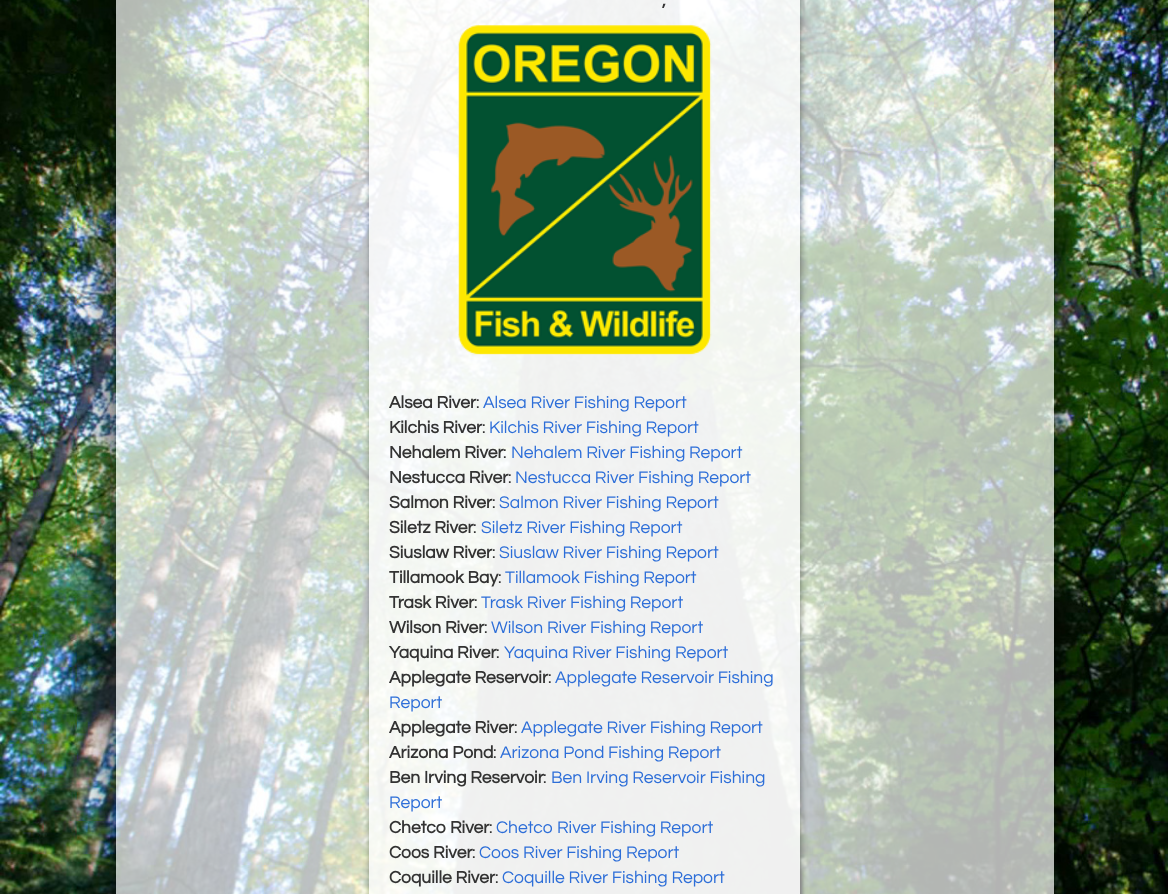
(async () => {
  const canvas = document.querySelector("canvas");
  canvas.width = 1168;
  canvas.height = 894;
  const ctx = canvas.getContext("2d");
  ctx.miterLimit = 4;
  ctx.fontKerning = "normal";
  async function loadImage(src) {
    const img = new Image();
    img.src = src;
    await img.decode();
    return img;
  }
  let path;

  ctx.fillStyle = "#ffffff";
  ctx.fillRect(0, 0, 1168, 894);
  ctx.drawImage(await loadImage("img/1.png"), 0, 0, 1168, 894);
  ctx.save();
  path = new Path2D("M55 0H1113V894H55ZM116-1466H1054V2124H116Z");
  ctx.clip(path, "evenodd");
  ctx.fillStyle = "rgba(0, 0, 0, 0.8)";
  ctx.filter = "blur(19px)";
  ctx.beginPath();
  ctx.rect(113, -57, 942, 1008);
  ctx.fill();
  ctx.filter = "none";
  ctx.restore();
  ctx.fillStyle = "rgba(255, 255, 255, 0.7)";
  ctx.fillRect(116, 0, 938, 894);
  ctx.save();
  path = new Path2D("M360 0H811V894H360ZM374-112H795C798-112 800-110 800-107V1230C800 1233 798 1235 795 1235H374C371 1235 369 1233 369 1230V-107C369-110 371-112 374-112Z");
  ctx.clip(path, "evenodd");
  ctx.fillStyle = "rgba(6, 6, 6, 0.4)";
  ctx.filter = "blur(3px)";
  ctx.beginPath();
  ctx.roundRect(370, -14, 431, 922, 5);
  ctx.fill();
  ctx.filter = "none";
  ctx.restore();
  ctx.fillStyle = "rgba(255, 255, 255, 0.8)";
  ctx.fillRect(369, 0, 431, 894);
  ctx.drawImage(await loadImage("img/2.png"), 458, 24, 254, 331);
  ctx.font = "bold 17.5px Questrial";
  ctx.fillStyle = "#333333";
  ctx.fillText(",", 662, 6);
  ctx.fillText("Alsea River", 389, 408);
  ctx.font = "17.5px Questrial";
  ctx.fillText(":", 476, 408);
  ctx.fillStyle = "#2d6ed8";
  ctx.fillText("Alsea River Fishing Report", 483, 408);
  ctx.font = "bold 17.5px Questrial";
  ctx.fillStyle = "#333333";
  ctx.fillText("Kilchis River", 389, 433);
  ctx.font = "17.5px Questrial";
  ctx.fillText(":", 482, 433);
  ctx.fillStyle = "#2d6ed8";
  ctx.fillText("Kilchis River Fishing Report", 489, 433);
  ctx.font = "bold 17.5px Questrial";
  ctx.fillStyle = "#333333";
  ctx.fillText("Nehalem River", 389, 458);
  ctx.font = "17.5px Questrial";
  ctx.fillText(":", 503, 458);
  ctx.fillStyle = "#2d6ed8";
  ctx.fillText("Nehalem River Fishing Report", 511, 458);
  ctx.font = "bold 17.5px Questrial";
  ctx.fillStyle = "#333333";
  ctx.fillText("Nestucca River", 389, 483);
  ctx.font = "17.5px Questrial";
  ctx.fillText(":", 508, 483);
  ctx.fillStyle = "#2d6ed8";
  ctx.fillText("Nestucca River Fishing Report", 515, 483);
  ctx.font = "bold 17.5px Questrial";
  ctx.fillStyle = "#333333";
  ctx.fillText("Salmon River", 389, 508);
  ctx.font = "17.5px Questrial";
  ctx.fillText(":", 492, 508);
  ctx.fillStyle = "#2d6ed8";
  ctx.fillText("Salmon River Fishing Report", 499, 508);
  ctx.font = "bold 17.5px Questrial";
  ctx.fillStyle = "#333333";
  ctx.fillText("Siletz River", 389, 533);
  ctx.font = "17.5px Questrial";
  ctx.fillText(":", 473, 533);
  ctx.fillStyle = "#2d6ed8";
  ctx.fillText("Siletz River Fishing Report", 481, 533);
  ctx.font = "bold 17.5px Questrial";
  ctx.fillStyle = "#333333";
  ctx.fillText("Siuslaw River", 389, 558);
  ctx.font = "17.5px Questrial";
  ctx.fillText(":", 492, 558);
  ctx.fillStyle = "#2d6ed8";
  ctx.fillText("Siuslaw River Fishing Report", 499, 558);
  ctx.font = "bold 17.5px Questrial";
  ctx.fillStyle = "#333333";
  ctx.fillText("Tillamook Bay", 389, 583);
  ctx.font = "17.5px Questrial";
  ctx.fillText(":", 498, 583);
  ctx.fillStyle = "#2d6ed8";
  ctx.fillText("Tillamook Fishing Report", 505, 583);
  ctx.font = "bold 17.5px Questrial";
  ctx.fillStyle = "#333333";
  ctx.fillText("Trask River", 389, 608);
  ctx.font = "17.5px Questrial";
  ctx.fillText(":", 474, 608);
  ctx.fillStyle = "#2d6ed8";
  ctx.fillText("Trask River Fishing Report", 481, 608);
  ctx.font = "bold 17.5px Questrial";
  ctx.fillStyle = "#333333";
  ctx.fillText("Wilson River", 389, 633);
  ctx.font = "17.5px Questrial";
  ctx.fillText(":", 484, 633);
  ctx.fillStyle = "#2d6ed8";
  ctx.fillText("Wilson River Fishing Report", 491, 633);
  ctx.font = "bold 17.5px Questrial";
  ctx.fillStyle = "#333333";
  ctx.fillText("Yaquina River", 389, 658);
  ctx.font = "17.5px Questrial";
  ctx.fillText(":", 496, 658);
  ctx.fillStyle = "#2d6ed8";
  ctx.fillText("Yaquina River Fishing Report", 504, 658);
  ctx.font = "bold 17.5px Questrial";
  ctx.fillStyle = "#333333";
  ctx.fillText("Applegate Reservoir", 389, 683);
  ctx.font = "17.5px Questrial";
  ctx.fillText(":", 548, 683);
  ctx.fillStyle = "#2d6ed8";
  ctx.fillText("Applegate Reservoir Fishing", 555, 683);
  ctx.fillText("Report", 389, 708);
  ctx.font = "bold 17.5px Questrial";
  ctx.fillStyle = "#333333";
  ctx.fillText("Applegate River", 389, 733);
  ctx.font = "17.5px Questrial";
  ctx.fillText(":", 514, 733);
  ctx.fillStyle = "#2d6ed8";
  ctx.fillText("Applegate River Fishing Report", 521, 733);
  ctx.font = "bold 17.5px Questrial";
  ctx.fillStyle = "#333333";
  ctx.fillText("Arizona Pond", 389, 758);
  ctx.font = "17.5px Questrial";
  ctx.fillText(":", 493, 758);
  ctx.fillStyle = "#2d6ed8";
  ctx.fillText("Arizona Pond Fishing Report", 500, 758);
  ctx.font = "bold 17.5px Questrial";
  ctx.fillStyle = "#333333";
  ctx.fillText("Ben Irving Reservoir", 389, 783);
  ctx.font = "17.5px Questrial";
  ctx.fillText(":", 543, 783);
  ctx.fillStyle = "#2d6ed8";
  ctx.fillText("Ben Irving Reservoir Fishing", 551, 783);
  ctx.fillText("Report", 389, 808);
  ctx.font = "bold 17.5px Questrial";
  ctx.fillStyle = "#333333";
  ctx.fillText("Chetco River", 389, 833);
  ctx.font = "17.5px Questrial";
  ctx.fillText(":", 489, 833);
  ctx.fillStyle = "#2d6ed8";
  ctx.fillText("Chetco River Fishing Report", 496, 833);
  ctx.font = "bold 17.5px Questrial";
  ctx.fillStyle = "#333333";
  ctx.fillText("Coos River", 389, 858);
  ctx.font = "17.5px Questrial";
  ctx.fillText(":", 472, 858);
  ctx.fillStyle = "#2d6ed8";
  ctx.fillText("Coos River Fishing Report", 479, 858);
  ctx.font = "bold 17.5px Questrial";
  ctx.fillStyle = "#333333";
  ctx.fillText("Coquille River", 389, 883);
  ctx.font = "17.5px Questrial";
  ctx.fillText(":", 495, 883);
  ctx.fillStyle = "#2d6ed8";
  ctx.fillText("Coquille River Fishing Report", 502, 883);
})();
